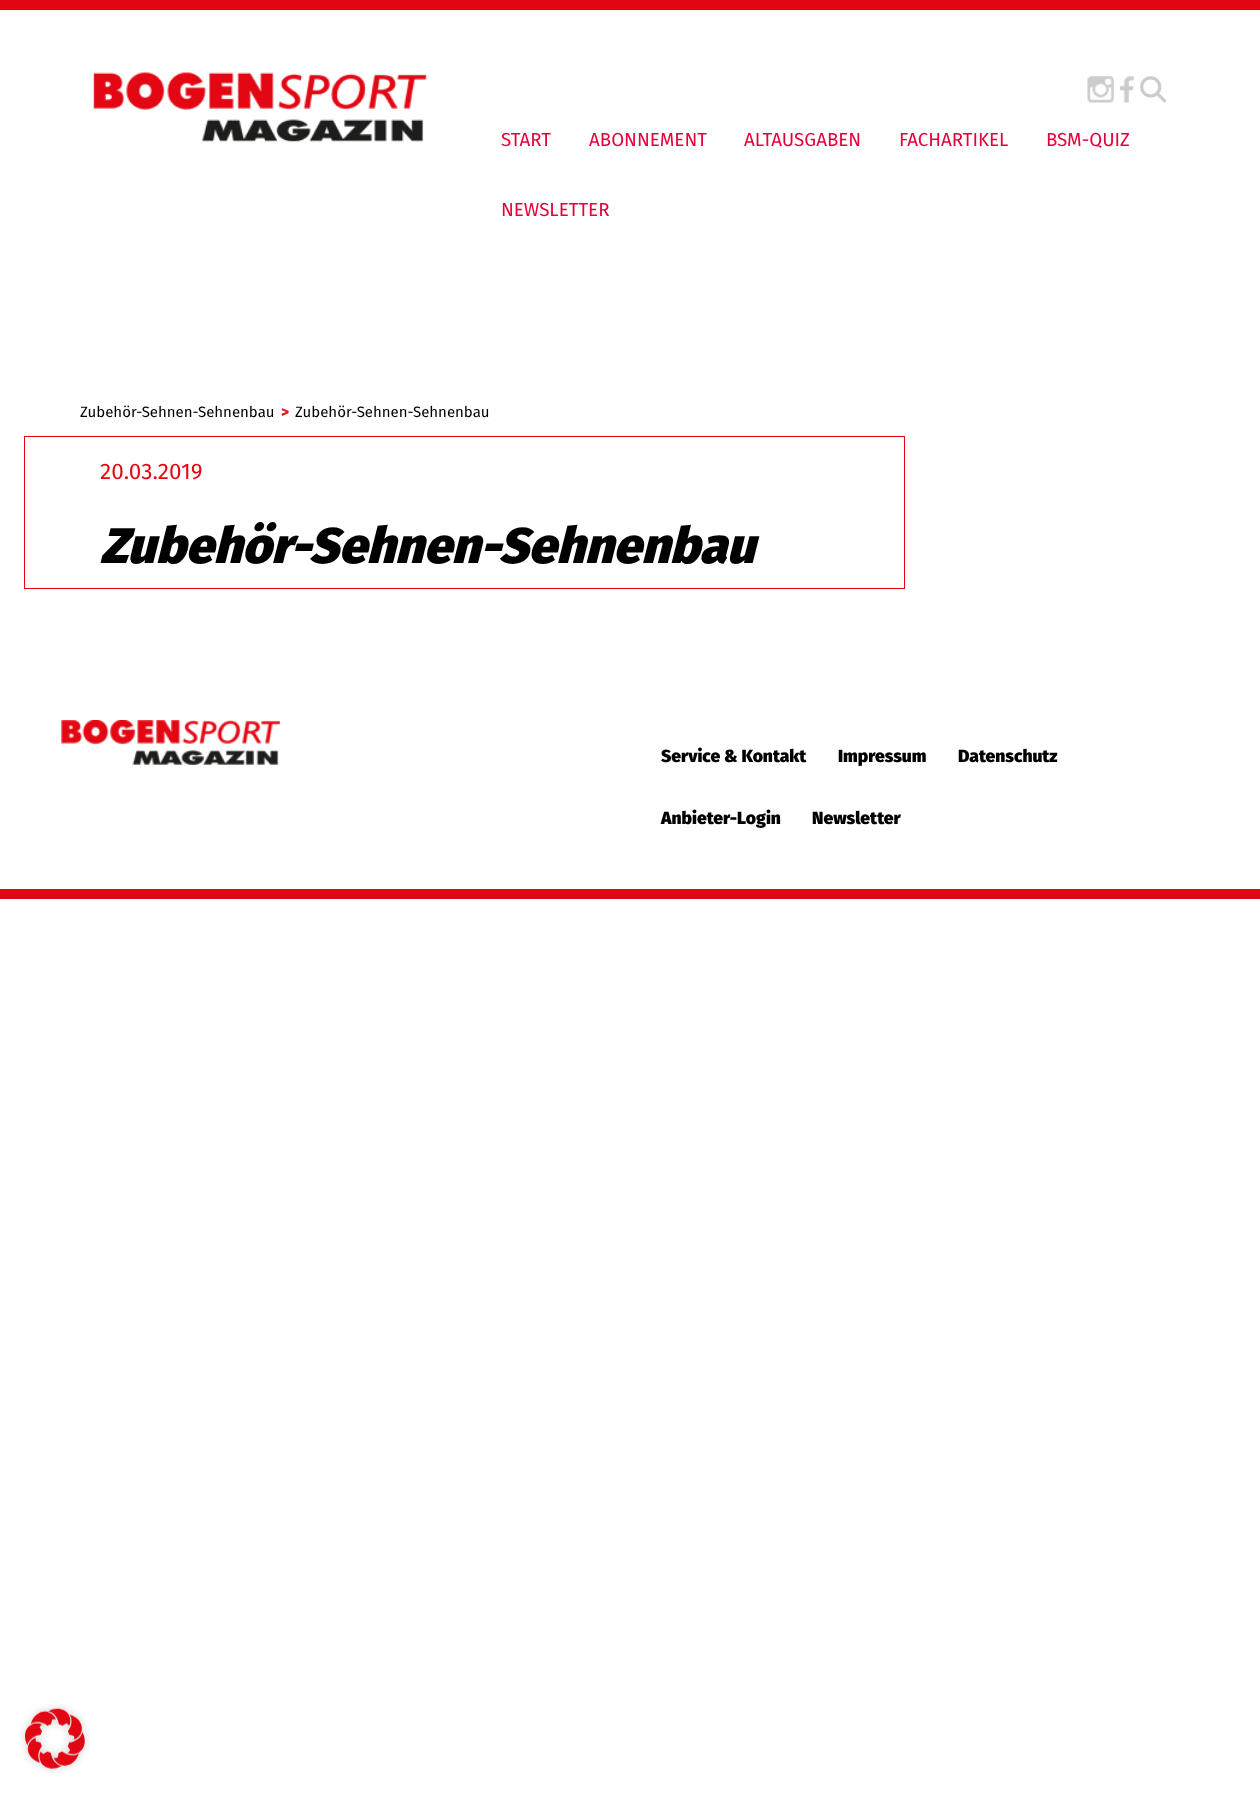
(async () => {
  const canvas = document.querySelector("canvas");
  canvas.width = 1260;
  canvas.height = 1793;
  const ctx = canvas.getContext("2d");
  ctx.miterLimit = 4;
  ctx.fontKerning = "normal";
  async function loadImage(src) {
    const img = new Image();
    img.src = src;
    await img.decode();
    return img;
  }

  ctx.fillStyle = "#ffffff";
  ctx.fillRect(0, 0, 1260, 1793);
  ctx.fillStyle = "#e20613";
  ctx.fillRect(0, 0, 1260, 10);
  ctx.drawImage(await loadImage("img/1.png"), 93, 72, 334, 70);
  ctx.drawImage(await loadImage("img/2.png"), 1087, 76, 27, 27);
  ctx.drawImage(await loadImage("img/3.png"), 1120, 76, 14, 27);
  ctx.drawImage(await loadImage("img/4.png"), 1140, 76, 26, 27);
  ctx.strokeStyle = "#e20613";
  ctx.strokeRect(24.5, 436.5, 880, 152);
  ctx.fillRect(0, 889, 1260, 10);
  ctx.drawImage(await loadImage("img/5.png"), 61, 720, 219, 45);
  ctx.drawImage(await loadImage("img/6.png"), 20, 1704, 70, 69);
  ctx.font = "18.75px Fira Sans";
  ctx.fillStyle = "#e4003a";
  for (const [text, x, y] of [
    ["START", 501, 146],
    ["ABONNEMENT", 589, 146],
    ["ALTAUSGABEN", 744, 146],
    ["FACHARTIKEL", 899, 146],
    ["BSM-QUIZ", 1046, 146],
    ["NEWSLETTER", 501, 216],
  ]) {
    ctx.fillText(text, x, y);
  }
  ctx.font = "15px Fira Sans";
  ctx.fillStyle = "#000000";
  ctx.fillText("Zubehör-Sehnen-Sehnenbau", 80, 417);
  ctx.font = "900 15px Fira Sans";
  ctx.fillStyle = "#e31c26";
  ctx.fillText(">", 281, 417);
  ctx.font = "15px Fira Sans";
  ctx.fillStyle = "#000000";
  ctx.fillText("Zubehör-Sehnen-Sehnenbau", 295, 417);
  ctx.font = "22.5px Fira Sans";
  ctx.fillStyle = "#e20613";
  ctx.fillText("20.03.2019", 100, 479);
  ctx.font = "italic 900 50px Fira Sans";
  ctx.fillStyle = "#000000";
  ctx.fillText("Zubehör-Sehnen-Sehnenbau", 100, 563);
  ctx.font = "900 17.5px Fira Sans";
  for (const [text, x, y] of [
    ["Service & Kontakt", 661, 762],
    ["Impressum", 838, 762],
    ["Datenschutz", 958, 762],
    ["Anbieter-Login", 661, 824],
    ["Newsletter", 812, 824],
  ]) {
    ctx.fillText(text, x, y);
  }
})();
